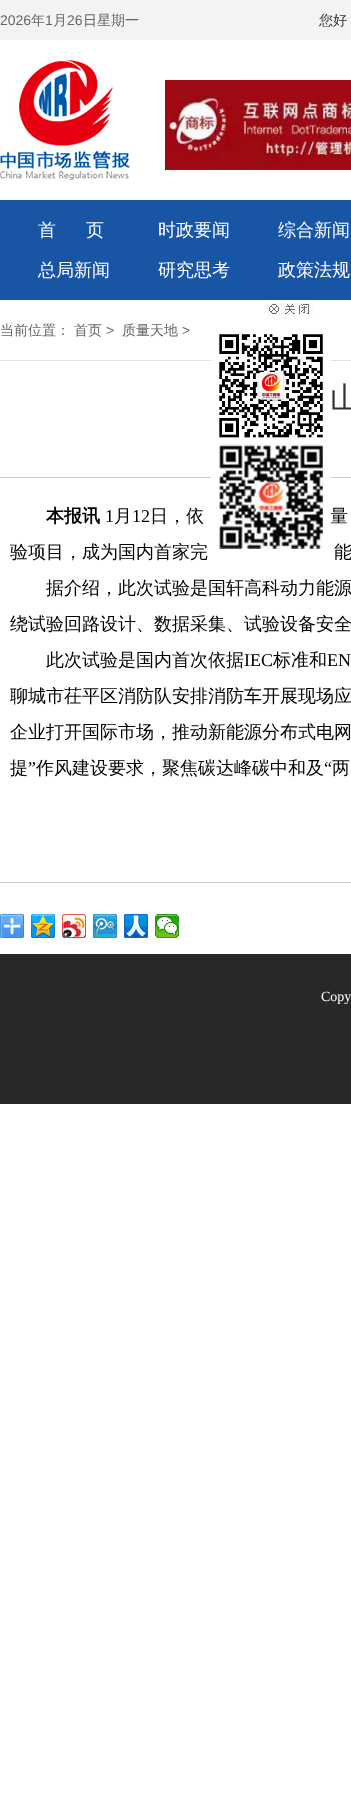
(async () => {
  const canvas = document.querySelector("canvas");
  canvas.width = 351;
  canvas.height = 1801;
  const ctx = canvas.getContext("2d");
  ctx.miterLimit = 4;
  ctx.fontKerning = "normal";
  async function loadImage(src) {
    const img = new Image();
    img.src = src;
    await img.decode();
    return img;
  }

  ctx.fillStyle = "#ffffff";
  ctx.fillRect(0, 0, 351, 1801);
  ctx.fillStyle = "#f3f3f3";
  ctx.fillRect(0, 0, 351, 40);
  ctx.drawImage(await loadImage("img/1.png"), 0, 60, 130, 120);
  ctx.drawImage(await loadImage("img/2.png"), 165, 80, 186, 90);
  ctx.fillStyle = "#1855a5";
  ctx.fillRect(0, 200, 351, 100);
  ctx.fillStyle = "#e2e2e2";
  ctx.fillRect(0, 360, 351, 1);
  ctx.drawImage(await loadImage("img/3.png"), 267, 302, 47, 14);
  ctx.fillStyle = "#cbcccc";
  ctx.fillRect(0, 477, 351, 1);
  ctx.fillRect(0, 882, 351, 1);
  ctx.drawImage(await loadImage("img/5.png"), 0, 914, 24, 24);
  ctx.drawImage(await loadImage("img/6.png"), 31, 914, 24, 24);
  ctx.drawImage(await loadImage("img/7.png"), 62, 914, 24, 24);
  ctx.drawImage(await loadImage("img/8.png"), 93, 914, 24, 24);
  ctx.drawImage(await loadImage("img/9.png"), 124, 914, 24, 24);
  ctx.drawImage(await loadImage("img/10.png"), 155, 914, 24, 24);
  ctx.fillStyle = "#282828";
  ctx.fillRect(0, 954, 351, 150);
  ctx.font = "14px Liberation Sans";
  ctx.fillStyle = "#666666";
  ctx.fillText("2026", 0, 25);
  ctx.font = "500 14px WenQuanYi Zen Hei";
  ctx.fillText("年", 31, 25);
  ctx.font = "14px Liberation Sans";
  ctx.fillText("1", 45, 25);
  ctx.font = "500 14px WenQuanYi Zen Hei";
  ctx.fillText("月", 53, 25);
  ctx.font = "14px Liberation Sans";
  ctx.fillText("26", 67, 25);
  ctx.font = "500 14px WenQuanYi Zen Hei";
  ctx.fillText("日星期一", 83, 25);
  ctx.fillStyle = "#333333";
  ctx.fillText("您好", 319, 25);
  ctx.font = "500 18px WenQuanYi Zen Hei";
  ctx.fillStyle = "#ffffff";
  for (const [text, x, y] of [
    ["首", 38, 236],
    ["页", 86, 236],
    ["时政要闻", 158, 236],
    ["综合新闻", 278, 236],
    ["总局新闻", 38, 276],
    ["研究思考", 158, 276],
    ["政策法规", 278, 276],
  ]) {
    ctx.fillText(text, x, y);
  }
  ctx.font = "500 14px WenQuanYi Zen Hei";
  ctx.fillStyle = "#666666";
  ctx.fillText("当前位置：", 0, 335);
  ctx.fillText("首页", 74, 335);
  ctx.font = "14px Liberation Sans";
  ctx.fillText(">", 106, 335);
  ctx.font = "500 14px WenQuanYi Zen Hei";
  ctx.fillText("质量天地", 122, 335);
  ctx.font = "14px Liberation Sans";
  ctx.fillText(">", 182, 335);
  ctx.font = "500 30px WenQuanYi Zen Hei";
  ctx.fillStyle = "#333333";
  ctx.fillText("山", 330, 408);
  ctx.font = "bold 18px WenQuanYi Zen Hei";
  ctx.fillStyle = "#000000";
  ctx.fillText("本报讯", 46, 522);
  ctx.font = "18px Liberation Serif";
  ctx.fillText("1", 105, 522);
  ctx.font = "500 18px WenQuanYi Zen Hei";
  ctx.fillText("月", 114, 522);
  ctx.font = "18px Liberation Serif";
  ctx.fillText("12", 132, 522);
  ctx.font = "500 18px WenQuanYi Zen Hei";
  ctx.fillText("日，依", 150, 522);
  ctx.fillText("量", 330, 522);
  ctx.drawImage(await loadImage("img/4.png"), 211, 334, 120, 222);
  for (const [text, x, y] of [
    ["验项目，成为国内首家完", 10, 558],
    ["能", 334, 558],
    ["据介绍，此次试验是国轩高科动力能源", 46, 594],
    ["绕试验回路设计、数据采集、试验设备安全", 10, 630],
    ["此次试验是国内首次依据", 46, 666],
  ]) {
    ctx.fillText(text, x, y);
  }
  ctx.font = "18px Liberation Serif";
  ctx.fillText("IEC", 244, 666);
  ctx.font = "500 18px WenQuanYi Zen Hei";
  ctx.fillText("标准和", 273, 666);
  ctx.font = "18px Liberation Serif";
  ctx.fillText("EN", 327, 666);
  ctx.font = "500 18px WenQuanYi Zen Hei";
  for (const [text, x, y] of [
    ["聊城市茌平区消防队安排消防车开展现场应", 10, 702],
    ["企业打开国际市场，推动新能源分布式电网", 10, 738],
    ["提", 10, 774],
  ]) {
    ctx.fillText(text, x, y);
  }
  ctx.font = "18px Liberation Serif";
  ctx.fillText("”", 28, 774);
  ctx.font = "500 18px WenQuanYi Zen Hei";
  ctx.fillText("作风建设要求，聚焦碳达峰碳中和及", 36, 774);
  ctx.font = "18px Liberation Serif";
  ctx.fillText("“", 324, 774);
  ctx.font = "500 18px WenQuanYi Zen Hei";
  ctx.fillText("两", 332, 774);
  ctx.font = "14px Liberation Serif";
  ctx.fillStyle = "#ffffff";
  ctx.fillText("Copy", 321, 1001);
})();
